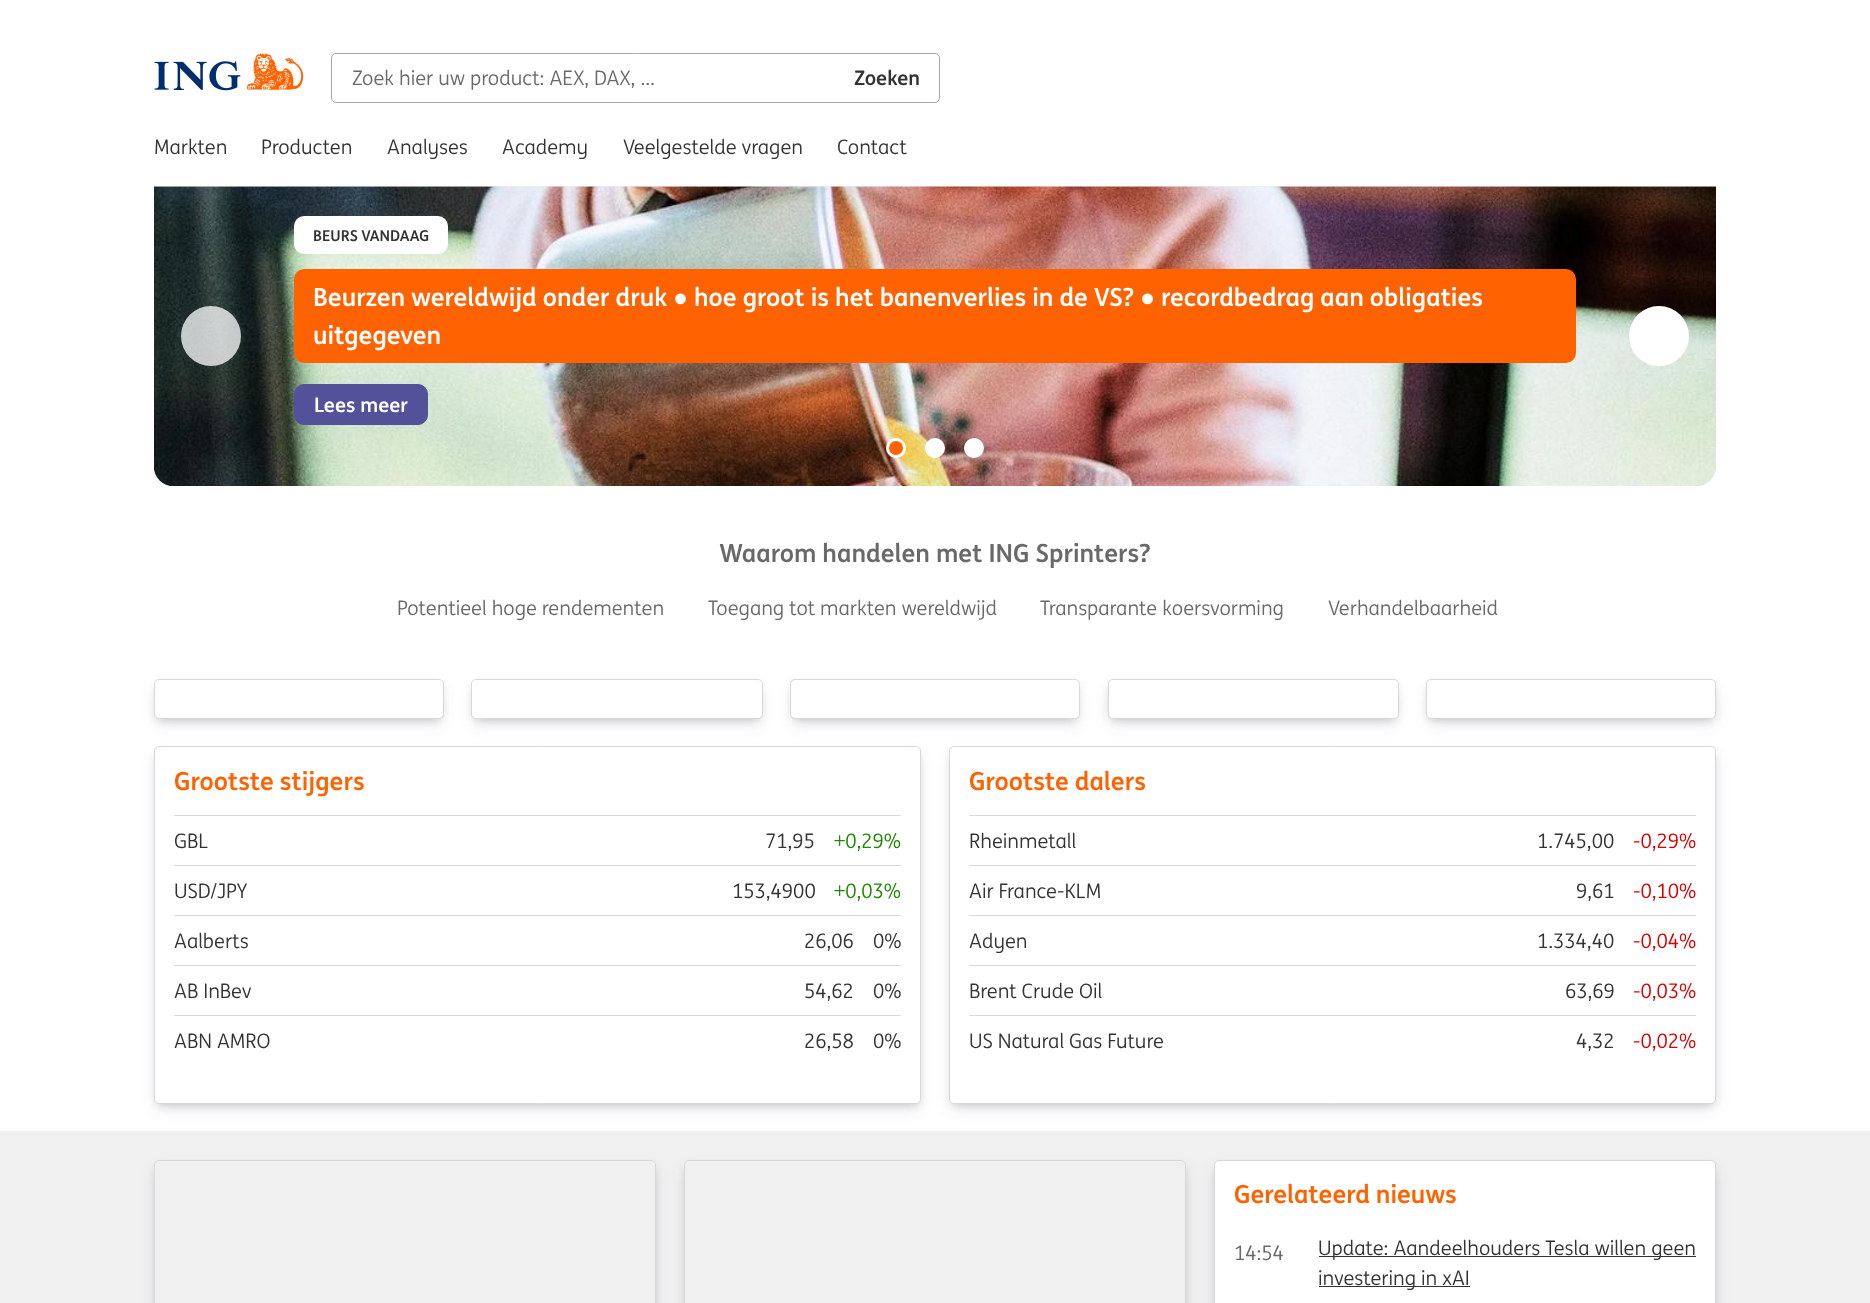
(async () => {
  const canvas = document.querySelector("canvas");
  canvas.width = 1870;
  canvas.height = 1303;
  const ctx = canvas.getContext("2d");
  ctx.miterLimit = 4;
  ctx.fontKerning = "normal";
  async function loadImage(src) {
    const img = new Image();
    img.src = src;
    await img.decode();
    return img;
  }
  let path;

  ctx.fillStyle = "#ffffff";
  ctx.fillRect(0, 0, 1870, 1303);
  ctx.drawImage(await loadImage("img/1.png"), 154, 53, 150, 38);
  ctx.beginPath();
  ctx.roundRect(331.5, 53.5, 608, 49, 4.5);
  ctx.strokeStyle = "#a8a8a8";
  ctx.stroke();
  ctx.fillStyle = "#f0f0f0";
  ctx.beginPath();
  ctx.roundRect(154, 186, 1562, 300, [0, 0, 20, 20]);
  ctx.fill();
  ctx.drawImage(await loadImage("img/2.png"), 154, 186, 1562, 300);
  ctx.fillStyle = "#ffffff";
  ctx.beginPath();
  ctx.roundRect(294, 216, 154, 38, 10);
  ctx.fill();
  ctx.fillStyle = "#ff6200";
  ctx.beginPath();
  ctx.roundRect(294, 269, 1282, 94, 10);
  ctx.fill();
  ctx.fillStyle = "#525199";
  ctx.beginPath();
  ctx.roundRect(294.5, 384.5, 133, 40, 9.5);
  ctx.fill();
  ctx.strokeStyle = "#525199";
  ctx.stroke();
  ctx.fillStyle = "rgba(255, 255, 255, 0.75)";
  ctx.beginPath();
  ctx.arc(211, 336, 30, 0, Math.PI * 2);
  ctx.fill();
  ctx.fillStyle = "#ffffff";
  ctx.beginPath();
  ctx.arc(1659, 336, 30, 0, Math.PI * 2);
  ctx.fill();
  ctx.fillStyle = "#ff6200";
  ctx.beginPath();
  ctx.arc(896, 448, 8.5, 0, Math.PI * 2);
  ctx.fill();
  ctx.strokeStyle = "#ffffff";
  ctx.lineWidth = 3;
  ctx.stroke();
  ctx.fillStyle = "#ffffff";
  ctx.beginPath();
  ctx.arc(935, 448, 8.5, 0, Math.PI * 2);
  ctx.fill();
  ctx.stroke();
  ctx.beginPath();
  ctx.arc(974, 448, 8.5, 0, Math.PI * 2);
  ctx.fill();
  ctx.stroke();
  ctx.fillStyle = "rgba(0, 0, 0, 0.2)";
  ctx.filter = "blur(4.5px)";
  ctx.beginPath();
  ctx.roundRect(158, 686, 282, 33, 1);
  ctx.fill();
  ctx.filter = "none";
  ctx.fillStyle = "rgba(50, 50, 93, 0.12)";
  ctx.filter = "blur(7.5px)";
  ctx.beginPath();
  ctx.roundRect(156, 689, 285, 35, 2.5);
  ctx.fill();
  ctx.filter = "none";
  ctx.fillStyle = "#ffffff";
  ctx.beginPath();
  ctx.roundRect(154.5, 679.5, 289, 39, 4.5);
  ctx.fill();
  ctx.strokeStyle = "#d9d9d9";
  ctx.lineWidth = 1;
  ctx.stroke();
  ctx.fillStyle = "rgba(0, 0, 0, 0.2)";
  ctx.filter = "blur(4.5px)";
  ctx.beginPath();
  ctx.roundRect(475, 686, 284, 33, 1);
  ctx.fill();
  ctx.filter = "none";
  ctx.fillStyle = "rgba(50, 50, 93, 0.12)";
  ctx.filter = "blur(7.5px)";
  ctx.beginPath();
  ctx.roundRect(474, 689, 286, 35, 2.5);
  ctx.fill();
  ctx.filter = "none";
  ctx.fillStyle = "#ffffff";
  ctx.beginPath();
  ctx.roundRect(471.5, 679.5, 291, 39, 4.5);
  ctx.fill();
  ctx.stroke();
  ctx.fillStyle = "rgba(0, 0, 0, 0.2)";
  ctx.filter = "blur(4.5px)";
  ctx.beginPath();
  ctx.roundRect(794, 686, 282, 33, 1);
  ctx.fill();
  ctx.filter = "none";
  ctx.fillStyle = "rgba(50, 50, 93, 0.12)";
  ctx.filter = "blur(7.5px)";
  ctx.beginPath();
  ctx.roundRect(793, 689, 285, 35, 2.5);
  ctx.fill();
  ctx.filter = "none";
  ctx.fillStyle = "#ffffff";
  ctx.beginPath();
  ctx.roundRect(790.5, 679.5, 289, 39, 4.5);
  ctx.fill();
  ctx.stroke();
  ctx.fillStyle = "rgba(0, 0, 0, 0.2)";
  ctx.filter = "blur(4.5px)";
  ctx.beginPath();
  ctx.roundRect(1111, 686, 284, 33, 1);
  ctx.fill();
  ctx.filter = "none";
  ctx.fillStyle = "rgba(50, 50, 93, 0.12)";
  ctx.filter = "blur(7.5px)";
  ctx.beginPath();
  ctx.roundRect(1110, 689, 286, 35, 2.5);
  ctx.fill();
  ctx.filter = "none";
  ctx.fillStyle = "#ffffff";
  ctx.beginPath();
  ctx.roundRect(1108.5, 679.5, 290, 39, 4.5);
  ctx.fill();
  ctx.stroke();
  ctx.fillStyle = "rgba(0, 0, 0, 0.2)";
  ctx.filter = "blur(4.5px)";
  ctx.beginPath();
  ctx.roundRect(1430, 686, 283, 33, 1);
  ctx.fill();
  ctx.filter = "none";
  ctx.fillStyle = "rgba(50, 50, 93, 0.12)";
  ctx.filter = "blur(7.5px)";
  ctx.beginPath();
  ctx.roundRect(1429, 689, 285, 35, 2.5);
  ctx.fill();
  ctx.filter = "none";
  ctx.fillStyle = "#ffffff";
  ctx.beginPath();
  ctx.roundRect(1426.5, 679.5, 289, 39, 4.5);
  ctx.fill();
  ctx.stroke();
  ctx.fillStyle = "rgba(0, 0, 0, 0.2)";
  ctx.filter = "blur(4.5px)";
  ctx.beginPath();
  ctx.roundRect(158, 754, 760, 350, 1);
  ctx.fill();
  ctx.filter = "none";
  ctx.fillStyle = "#f0f0f0";
  ctx.fillRect(0, 1131, 1870, 172);
  ctx.fillStyle = "rgba(50, 50, 93, 0.12)";
  ctx.filter = "blur(7.5px)";
  ctx.beginPath();
  ctx.roundRect(156, 756, 763, 353, 2.5);
  ctx.fill();
  ctx.filter = "none";
  ctx.fillStyle = "#ffffff";
  ctx.beginPath();
  ctx.roundRect(154.5, 746.5, 766, 357, 4.5);
  ctx.fill();
  ctx.stroke();
  for (const [x, y, w, h, color] of [
    [174, 815, 727, 1, "#d9d9d9"],
    [174, 865, 727, 1, "#d9d9d9"],
    [174, 915, 727, 1, "#d9d9d9"],
    [174, 965, 727, 1, "#d9d9d9"],
    [174, 1015, 727, 1, "#d9d9d9"],
  ]) {
    ctx.fillStyle = color;
    ctx.fillRect(x, y, w, h);
  }
  ctx.fillStyle = "rgba(0, 0, 0, 0.2)";
  ctx.filter = "blur(4.5px)";
  ctx.beginPath();
  ctx.roundRect(953, 754, 760, 350, 1);
  ctx.fill();
  ctx.filter = "none";
  ctx.fillStyle = "rgba(50, 50, 93, 0.12)";
  ctx.filter = "blur(7.5px)";
  ctx.beginPath();
  ctx.roundRect(951, 756, 763, 353, 2.5);
  ctx.fill();
  ctx.filter = "none";
  ctx.fillStyle = "#ffffff";
  ctx.beginPath();
  ctx.roundRect(949.5, 746.5, 766, 357, 4.5);
  ctx.fill();
  ctx.stroke();
  for (const [x, y, w, h, color] of [
    [969, 815, 727, 1, "#d9d9d9"],
    [969, 865, 727, 1, "#d9d9d9"],
    [969, 915, 727, 1, "#d9d9d9"],
    [969, 965, 727, 1, "#d9d9d9"],
    [969, 1015, 727, 1, "#d9d9d9"],
  ]) {
    ctx.fillStyle = color;
    ctx.fillRect(x, y, w, h);
  }
  ctx.fillStyle = "rgba(0, 0, 0, 0.2)";
  ctx.filter = "blur(4.5px)";
  ctx.beginPath();
  ctx.roundRect(158, 1168, 495, 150, 1);
  ctx.fill();
  ctx.filter = "none";
  ctx.fillStyle = "rgba(50, 50, 93, 0.12)";
  ctx.filter = "blur(7.5px)";
  ctx.beginPath();
  ctx.roundRect(156, 1170, 498, 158, 2.5);
  ctx.fill();
  ctx.filter = "none";
  ctx.beginPath();
  ctx.roundRect(154.5, 1160.5, 501, 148, 4.5);
  ctx.stroke();
  ctx.fillStyle = "#f0f0f0";
  path = new Path2D("M159 1161H651C653 1161 655 1163 655 1165V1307H155V1165C155 1163 157 1161 159 1161Z");
  ctx.fill(path);
  ctx.fillStyle = "rgba(0, 0, 0, 0.2)";
  ctx.filter = "blur(4.5px)";
  ctx.beginPath();
  ctx.roundRect(688, 1168, 495, 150, 1);
  ctx.fill();
  ctx.filter = "none";
  ctx.fillStyle = "rgba(50, 50, 93, 0.12)";
  ctx.filter = "blur(7.5px)";
  ctx.beginPath();
  ctx.roundRect(686, 1170, 498, 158, 2.5);
  ctx.fill();
  ctx.filter = "none";
  ctx.beginPath();
  ctx.roundRect(684.5, 1160.5, 501, 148, 4.5);
  ctx.stroke();
  ctx.fillStyle = "#f0f0f0";
  path = new Path2D("M689 1161H1181C1183 1161 1185 1163 1185 1165V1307H685V1165C685 1163 687 1161 689 1161Z");
  ctx.fill(path);
  ctx.fillStyle = "rgba(0, 0, 0, 0.2)";
  ctx.filter = "blur(4.5px)";
  ctx.beginPath();
  ctx.roundRect(1218, 1168, 495, 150, 1);
  ctx.fill();
  ctx.filter = "none";
  ctx.fillStyle = "rgba(50, 50, 93, 0.12)";
  ctx.filter = "blur(7.5px)";
  ctx.beginPath();
  ctx.roundRect(1216, 1170, 498, 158, 2.5);
  ctx.fill();
  ctx.filter = "none";
  ctx.fillStyle = "#ffffff";
  ctx.beginPath();
  ctx.roundRect(1214.5, 1160.5, 501, 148, 4.5);
  ctx.fill();
  ctx.stroke();
  ctx.fillStyle = "#333333";
  ctx.fillRect(1319, 1256, 377, 1);
  ctx.fillRect(1319, 1286, 151, 1);
  ctx.font = "20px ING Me";
  ctx.fillStyle = "#696969";
  ctx.fillText("Zoek hier uw product: AEX, DAX, …", 352, 85);
  ctx.font = "bold 20px ING Me";
  ctx.fillStyle = "#333333";
  ctx.fillText("Zoeken", 854, 85);
  ctx.font = "20px ING Me";
  for (const [text, x, y] of [
    ["Markten", 154, 154],
    ["Producten", 261, 154],
    ["Analyses", 387, 154],
    ["Academy", 502, 154],
    ["Veelgestelde vragen", 623, 154],
    ["Contact", 837, 154],
  ]) {
    ctx.fillText(text, x, y);
  }
  ctx.font = "bold 15px ING Me";
  ctx.fillText("BEURS VANDAAG", 313, 241);
  ctx.font = "bold 25px ING Me";
  ctx.fillStyle = "#ffffff";
  ctx.fillText("Beurzen wereldwijd onder druk", 313, 306);
  ctx.font = "bold 25px Liberation Sans";
  ctx.fillText("●", 673, 306);
  ctx.font = "bold 25px ING Me";
  ctx.fillText("hoe groot is het banenverlies in de VS?", 694, 306);
  ctx.font = "bold 25px Liberation Sans";
  ctx.fillText("●", 1140, 306);
  ctx.font = "bold 25px ING Me";
  ctx.fillText("recordbedrag aan obligaties", 1161, 306);
  ctx.fillText("uitgegeven", 313, 344);
  ctx.font = "bold 20px ING Me";
  ctx.fillText("Lees meer", 314, 412);
  ctx.font = "bold 25px ING Me";
  ctx.fillStyle = "#696969";
  ctx.fillText("Waarom handelen met ING Sprinters?", 719, 562);
  ctx.font = "20px ING Me";
  for (const [text, x, y] of [
    ["Potentieel hoge rendementen", 397, 615],
    ["Toegang tot markten wereldwijd", 708, 615],
    ["Transparante koersvorming", 1040, 615],
    ["Verhandelbaarheid", 1328, 615],
  ]) {
    ctx.fillText(text, x, y);
  }
  ctx.font = "bold 25px ING Me";
  ctx.fillStyle = "#ff6200";
  ctx.fillText("Grootste stijgers", 174, 790);
  ctx.font = "20px ING Me";
  ctx.fillStyle = "#333333";
  ctx.fillText("GBL", 174, 848);
  ctx.fillText("71,95", 765, 848);
  ctx.fillStyle = "#1e8700";
  ctx.fillText("+0,29%", 834, 848);
  ctx.fillStyle = "#333333";
  ctx.fillText("USD/JPY", 174, 898);
  ctx.fillText("153,4900", 732, 898);
  ctx.fillStyle = "#1e8700";
  ctx.fillText("+0,03%", 834, 898);
  ctx.fillStyle = "#333333";
  for (const [text, x, y] of [
    ["Aalberts", 174, 948],
    ["26,06", 804, 948],
    ["0%", 873, 948],
    ["AB InBev", 174, 998],
    ["54,62", 804, 998],
    ["0%", 873, 998],
    ["ABN AMRO", 174, 1048],
    ["26,58", 804, 1048],
    ["0%", 873, 1048],
  ]) {
    ctx.fillText(text, x, y);
  }
  ctx.font = "bold 25px ING Me";
  ctx.fillStyle = "#ff6200";
  ctx.fillText("Grootste dalers", 969, 790);
  ctx.font = "20px ING Me";
  ctx.fillStyle = "#333333";
  ctx.fillText("Rheinmetall", 969, 848);
  ctx.fillText("1.745,00", 1537, 848);
  ctx.fillStyle = "#d70000";
  ctx.fillText("-0,29%", 1633, 848);
  ctx.fillStyle = "#333333";
  ctx.fillText("Air France-KLM", 969, 898);
  ctx.fillText("9,61", 1576, 898);
  ctx.fillStyle = "#d70000";
  ctx.fillText("-0,10%", 1633, 898);
  ctx.fillStyle = "#333333";
  ctx.fillText("Adyen", 969, 948);
  ctx.fillText("1.334,40", 1537, 948);
  ctx.fillStyle = "#d70000";
  ctx.fillText("-0,04%", 1633, 948);
  ctx.fillStyle = "#333333";
  ctx.fillText("Brent Crude Oil", 969, 998);
  ctx.fillText("63,69", 1565, 998);
  ctx.fillStyle = "#d70000";
  ctx.fillText("-0,03%", 1633, 998);
  ctx.fillStyle = "#333333";
  ctx.fillText("US Natural Gas Future", 969, 1048);
  ctx.fillText("4,32", 1576, 1048);
  ctx.fillStyle = "#d70000";
  ctx.fillText("-0,02%", 1633, 1048);
  ctx.font = "bold 25px ING Me";
  ctx.fillStyle = "#ff6200";
  ctx.fillText("Gerelateerd nieuws", 1234, 1203);
  ctx.font = "20px ING Me";
  ctx.fillStyle = "#696969";
  ctx.fillText("14:54", 1234, 1260);
  ctx.fillStyle = "#333333";
  ctx.fillText("Update: Aandeelhouders Tesla willen geen", 1318, 1255);
  ctx.fillText("investering in xAI", 1318, 1285);
})();
